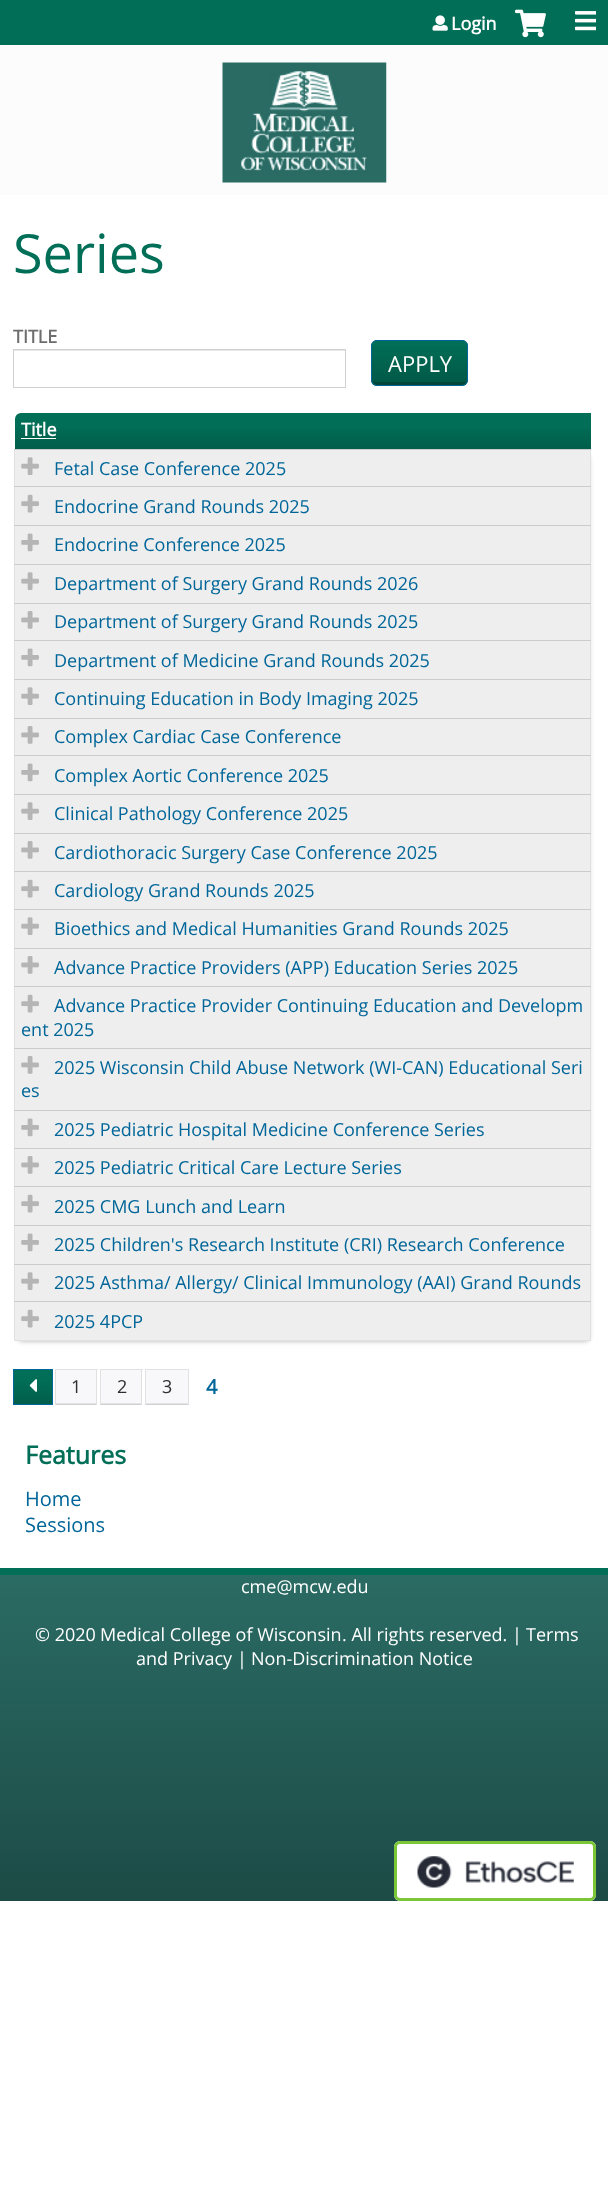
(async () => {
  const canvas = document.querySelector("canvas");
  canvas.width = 608;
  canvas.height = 2189;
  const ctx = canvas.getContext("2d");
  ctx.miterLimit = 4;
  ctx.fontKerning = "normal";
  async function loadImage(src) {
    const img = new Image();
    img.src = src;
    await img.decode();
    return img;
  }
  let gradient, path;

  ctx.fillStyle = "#ffffff";
  ctx.fillRect(0, 0, 608, 2189);
  ctx.fillStyle = "#fcfcfc";
  ctx.fillRect(0, 45, 608, 150);
  ctx.fillStyle = "#016e57";
  ctx.fillRect(0, 0, 608, 45);
  ctx.drawImage(await loadImage("img/1.png"), 432, 15, 16, 16);
  ctx.drawImage(await loadImage("img/2.png"), 515, 9, 31, 29);
  ctx.drawImage(await loadImage("img/3.png"), 575, 11, 21, 20);
  ctx.drawImage(await loadImage("img/4.png"), 222, 62, 165, 121);
  ctx.fillStyle = "#e6e6e6";
  ctx.fillRect(14, 350, 331, 1);
  ctx.strokeStyle = "#d1d1d1";
  ctx.strokeRect(13.5, 349.5, 332, 38);
  ctx.fillStyle = "#016e57";
  ctx.beginPath();
  ctx.roundRect(371, 340, 97, 46, 6);
  ctx.fill();
  ctx.save();
  ctx.beginPath();
  ctx.roundRect(371, 340, 97, 46, 6);
  ctx.clip();
  gradient = ctx.createLinearGradient(419, 385, 419, 341);
  gradient.addColorStop(0, "rgba(0, 0, 0, 0.2)");
  gradient.addColorStop(1, "rgba(0, 0, 0, 0)");
  ctx.fillStyle = gradient;
  ctx.fillRect(371, 346, 97, 39);
  ctx.restore();
  ctx.fillStyle = "#014738";
  path = new Path2D("M373 381C373 383 375 385 378 385H461C464 385 466 383 466 381C465 382 463 382 461 382H378C376 382 374 382 373 381Z");
  ctx.fill(path);
  ctx.beginPath();
  ctx.roundRect(371.5, 340.5, 96, 45, 5.5);
  ctx.strokeStyle = "#006699";
  ctx.stroke();
  ctx.fillStyle = "rgba(0, 0, 0, 0.3)";
  ctx.filter = "blur(2.5px)";
  ctx.beginPath();
  ctx.roundRect(18, 455, 571, 886, 4);
  ctx.fill();
  ctx.filter = "none";
  ctx.fillStyle = "#016e57";
  ctx.beginPath();
  ctx.roundRect(15, 413, 576, 36, [6, 0, 0, 0]);
  ctx.fill();
  gradient = ctx.createLinearGradient(303, 449, 303, 413);
  gradient.addColorStop(0, "rgba(0, 0, 0, 0.15)");
  gradient.addColorStop(0.7, "rgba(0, 0, 0, 0)");
  ctx.fillStyle = gradient;
  ctx.fillRect(15, 428, 576, 21);
  for (const [x, y, w, h, color] of [
    [21, 438, 35, 1, "#ffffff"],
    [590, 449, 1, 892, "#e1e1e1"],
    [14, 1340, 577, 1, "#e1e1e1"],
    [14, 449, 1, 892, "#e1e1e1"],
    [14, 449, 577, 1, "#cccccc"],
    [15, 450, 575, 75, "#eeeeee"],
  ]) {
    ctx.fillStyle = color;
    ctx.fillRect(x, y, w, h);
  }
  ctx.drawImage(await loadImage("img/5.png"), 21, 457, 18, 18);
  ctx.fillStyle = "#cccccc";
  ctx.fillRect(14, 486, 577, 1);
  ctx.drawImage(await loadImage("img/6.png"), 21, 494, 18, 19);
  ctx.fillRect(14, 525, 577, 1);
  ctx.fillStyle = "#eeeeee";
  ctx.fillRect(15, 526, 575, 38);
  ctx.drawImage(await loadImage("img/7.png"), 21, 533, 18, 19);
  ctx.fillRect(15, 565, 575, 38);
  ctx.fillStyle = "#cccccc";
  ctx.fillRect(14, 564, 577, 1);
  ctx.drawImage(await loadImage("img/5.png"), 21, 572, 18, 18);
  ctx.fillRect(14, 603, 577, 1);
  ctx.fillStyle = "#eeeeee";
  ctx.fillRect(15, 604, 575, 36);
  ctx.drawImage(await loadImage("img/8.png"), 21, 611, 18, 18);
  ctx.fillRect(15, 641, 575, 38);
  ctx.fillStyle = "#cccccc";
  ctx.fillRect(14, 640, 577, 1);
  ctx.drawImage(await loadImage("img/7.png"), 21, 648, 18, 19);
  ctx.fillRect(14, 679, 577, 1);
  ctx.fillStyle = "#eeeeee";
  ctx.fillRect(15, 680, 575, 38);
  ctx.drawImage(await loadImage("img/5.png"), 21, 687, 18, 18);
  ctx.fillRect(15, 719, 575, 36);
  ctx.fillStyle = "#cccccc";
  ctx.fillRect(14, 718, 577, 1);
  ctx.drawImage(await loadImage("img/8.png"), 21, 726, 18, 18);
  ctx.fillRect(14, 755, 577, 1);
  ctx.fillStyle = "#eeeeee";
  ctx.fillRect(15, 756, 575, 38);
  ctx.drawImage(await loadImage("img/7.png"), 21, 763, 18, 19);
  ctx.fillRect(15, 795, 575, 38);
  ctx.fillStyle = "#cccccc";
  ctx.fillRect(14, 794, 577, 1);
  ctx.drawImage(await loadImage("img/5.png"), 21, 802, 18, 18);
  ctx.fillRect(14, 833, 577, 1);
  ctx.fillStyle = "#eeeeee";
  ctx.fillRect(15, 834, 575, 37);
  ctx.drawImage(await loadImage("img/8.png"), 21, 841, 18, 18);
  ctx.fillRect(15, 872, 575, 37);
  ctx.fillStyle = "#cccccc";
  ctx.fillRect(14, 871, 577, 1);
  ctx.drawImage(await loadImage("img/6.png"), 21, 879, 18, 19);
  ctx.fillRect(14, 909, 577, 1);
  ctx.fillStyle = "#eeeeee";
  ctx.fillRect(15, 910, 575, 38);
  ctx.drawImage(await loadImage("img/5.png"), 21, 917, 18, 18);
  ctx.fillRect(15, 949, 575, 37);
  ctx.fillStyle = "#cccccc";
  ctx.fillRect(14, 948, 577, 1);
  ctx.drawImage(await loadImage("img/8.png"), 21, 956, 18, 18);
  ctx.fillRect(14, 986, 577, 1);
  ctx.fillStyle = "#eeeeee";
  ctx.fillRect(15, 987, 575, 61);
  ctx.drawImage(await loadImage("img/6.png"), 21, 994, 18, 19);
  ctx.fillRect(15, 1049, 575, 61);
  ctx.fillStyle = "#cccccc";
  ctx.fillRect(14, 1048, 577, 1);
  ctx.drawImage(await loadImage("img/8.png"), 21, 1056, 18, 18);
  ctx.fillRect(14, 1110, 577, 1);
  ctx.fillStyle = "#eeeeee";
  ctx.fillRect(15, 1111, 575, 37);
  ctx.drawImage(await loadImage("img/7.png"), 21, 1118, 18, 19);
  ctx.fillRect(15, 1149, 575, 76);
  ctx.fillStyle = "#cccccc";
  ctx.fillRect(14, 1148, 577, 1);
  ctx.drawImage(await loadImage("img/8.png"), 21, 1156, 18, 18);
  ctx.fillRect(14, 1186, 577, 1);
  ctx.drawImage(await loadImage("img/6.png"), 21, 1194, 18, 19);
  ctx.fillStyle = "#eeeeee";
  ctx.fillRect(15, 1226, 575, 38);
  ctx.fillStyle = "#cccccc";
  ctx.fillRect(14, 1225, 577, 1);
  ctx.drawImage(await loadImage("img/7.png"), 21, 1233, 18, 19);
  ctx.fillRect(14, 1264, 577, 1);
  ctx.fillStyle = "#eeeeee";
  ctx.fillRect(15, 1265, 575, 75);
  ctx.drawImage(await loadImage("img/5.png"), 21, 1272, 18, 18);
  ctx.fillStyle = "#cccccc";
  ctx.fillRect(14, 1301, 577, 1);
  ctx.drawImage(await loadImage("img/6.png"), 21, 1309, 18, 19);
  gradient = ctx.createLinearGradient(33, 1404, 33, 1370);
  gradient.addColorStop(0, "#015e4a");
  gradient.addColorStop(0.7, "#016e57");
  ctx.fillStyle = gradient;
  ctx.fillRect(14, 1370, 38, 34);
  ctx.strokeRect(13.5, 1369.5, 39, 35);
  ctx.drawImage(await loadImage("img/9.png"), 29, 1379, 8, 13);
  gradient = ctx.createLinearGradient(76, 1405, 76, 1370);
  gradient.addColorStop(0, "#c6c6c8");
  gradient.addColorStop(0.07, "#f8f8fa");
  ctx.fillStyle = gradient;
  ctx.fillRect(56, 1370, 40, 35);
  for (const [x, y, w, h, color] of [
    [55, 1369, 43, 1, "#e1e1e1"],
    [96, 1369, 1, 36, "#e1e1e1"],
    [55, 1369, 1, 36, "#e1e1e1"],
  ]) {
    ctx.fillStyle = color;
    ctx.fillRect(x, y, w, h);
  }
  gradient = ctx.createLinearGradient(121, 1405, 121, 1370);
  gradient.addColorStop(0, "#c6c6c8");
  gradient.addColorStop(0.07, "#f8f8fa");
  ctx.fillStyle = gradient;
  ctx.fillRect(101, 1370, 40, 35);
  for (const [x, y, w, h, color] of [
    [100, 1369, 43, 1, "#e1e1e1"],
    [141, 1369, 1, 36, "#e1e1e1"],
    [100, 1369, 1, 36, "#e1e1e1"],
  ]) {
    ctx.fillStyle = color;
    ctx.fillRect(x, y, w, h);
  }
  gradient = ctx.createLinearGradient(167, 1405, 167, 1370);
  gradient.addColorStop(0, "#c6c6c8");
  gradient.addColorStop(0.07, "#f8f8fa");
  ctx.fillStyle = gradient;
  ctx.fillRect(146, 1370, 42, 35);
  for (const [x, y, w, h, color] of [
    [145, 1369, 44, 1, "#e1e1e1"],
    [188, 1369, 1, 36, "#e1e1e1"],
    [145, 1369, 1, 36, "#e1e1e1"],
  ]) {
    ctx.fillStyle = color;
    ctx.fillRect(x, y, w, h);
  }
  gradient = ctx.createLinearGradient(304, 1901, 304, 1575);
  gradient.addColorStop(0, "#1d4b46");
  gradient.addColorStop(1, "#2a6b64");
  ctx.fillStyle = gradient;
  ctx.fillRect(0, 1575, 608, 326);
  ctx.fillStyle = "#016e57";
  ctx.fillRect(0, 1568, 608, 7);
  ctx.fillStyle = "#ffffff";
  ctx.beginPath();
  ctx.roundRect(394, 1841, 202, 60, 6);
  ctx.fill();
  ctx.drawImage(await loadImage("img/10.png"), 417, 1856, 157, 32);
  ctx.beginPath();
  ctx.roundRect(395.5, 1842.5, 199, 57, 4.5);
  ctx.strokeStyle = "#7ac637";
  ctx.lineWidth = 3;
  ctx.stroke();
  ctx.font = "bold 18px Open Sans";
  ctx.fillText("Login", 451, 30);
  ctx.font = "54px Open Sans";
  ctx.fillStyle = "#016e57";
  ctx.fillText("Series", 13, 273);
  ctx.font = "bold 18px Open Sans";
  ctx.fillStyle = "#6d6d6d";
  ctx.fillText("TITLE", 13, 343);
  ctx.font = "22px Open Sans";
  ctx.fillStyle = "#ffffff";
  ctx.fillText("APPLY", 388, 372);
  ctx.font = "bold 18px Open Sans";
  ctx.fillText("Title", 21, 436);
  ctx.font = "18px Open Sans";
  ctx.fillStyle = "#006699";
  for (const [text, x, y] of [
    ["Fetal Case Conference 2025", 54, 475],
    ["Endocrine Grand Rounds 2025", 54, 513],
    ["Endocrine Conference 2025", 54, 551],
    ["Department of Surgery Grand Rounds 2026", 54, 590],
    ["Department of Surgery Grand Rounds 2025", 54, 628],
    ["Department of Medicine Grand Rounds 2025", 54, 667],
    ["Continuing Education in Body Imaging 2025", 54, 705],
    ["Complex Cardiac Case Conference", 54, 743],
    ["Complex Aortic Conference 2025", 54, 782],
    ["Clinical Pathology Conference 2025", 54, 820],
    ["Cardiothoracic Surgery Case Conference 2025", 54, 859],
    ["Cardiology Grand Rounds 2025", 54, 897],
    ["Bioethics and Medical Humanities Grand Rounds 2025", 54, 935],
    ["Advance Practice Providers (APP) Education Series 2025", 54, 974],
    ["Advance Practice Provider Continuing Education and Developm", 54, 1012],
    ["ent 2025", 21, 1036],
    ["2025 Wisconsin Child Abuse Network (WI-CAN) Educational Seri", 54, 1074],
    ["es", 21, 1097],
    ["2025 Pediatric Hospital Medicine Conference Series", 54, 1136],
    ["2025 Pediatric Critical Care Lecture Series", 54, 1174],
    ["2025 CMG Lunch and Learn", 54, 1213],
    ["2025 Children's Research Institute (CRI) Research Conference", 54, 1251],
    ["2025 Asthma/ Allergy/ Clinical Immunology (AAI) Grand Rounds", 54, 1289],
    ["2025 4PCP", 54, 1328],
  ]) {
    ctx.fillText(text, x, y);
  }
  ctx.fillStyle = "#2f2f2f";
  for (const [text, x, y] of [
    ["1", 71, 1393],
    ["2", 117, 1393],
    ["3", 162, 1393],
  ]) {
    ctx.fillText(text, x, y);
  }
  ctx.font = "bold 20px Open Sans";
  ctx.fillStyle = "#006699";
  ctx.fillText("4", 206, 1394);
  ctx.font = "bold 25px Open Sans";
  ctx.fillStyle = "#016e57";
  ctx.fillText("Features", 25, 1464);
  ctx.font = "20px Open Sans";
  ctx.fillStyle = "#006699";
  ctx.fillText("Home", 25, 1506);
  ctx.fillText("Sessions", 25, 1532);
  ctx.font = "18px Open Sans";
  ctx.fillStyle = "#ffffff";
  for (const [text, x, y] of [
    ["cme@mcw.edu", 241, 1593],
    ["© 2020", 35, 1641],
    ["Medical College of Wisconsin", 100, 1641],
    [". All rights reserved. |", 342, 1641],
    ["Terms", 526, 1641],
    ["and Privacy", 136, 1665],
    ["|", 237, 1665],
    ["Non-Discrimination Notice", 251, 1665],
  ]) {
    ctx.fillText(text, x, y);
  }
})();
